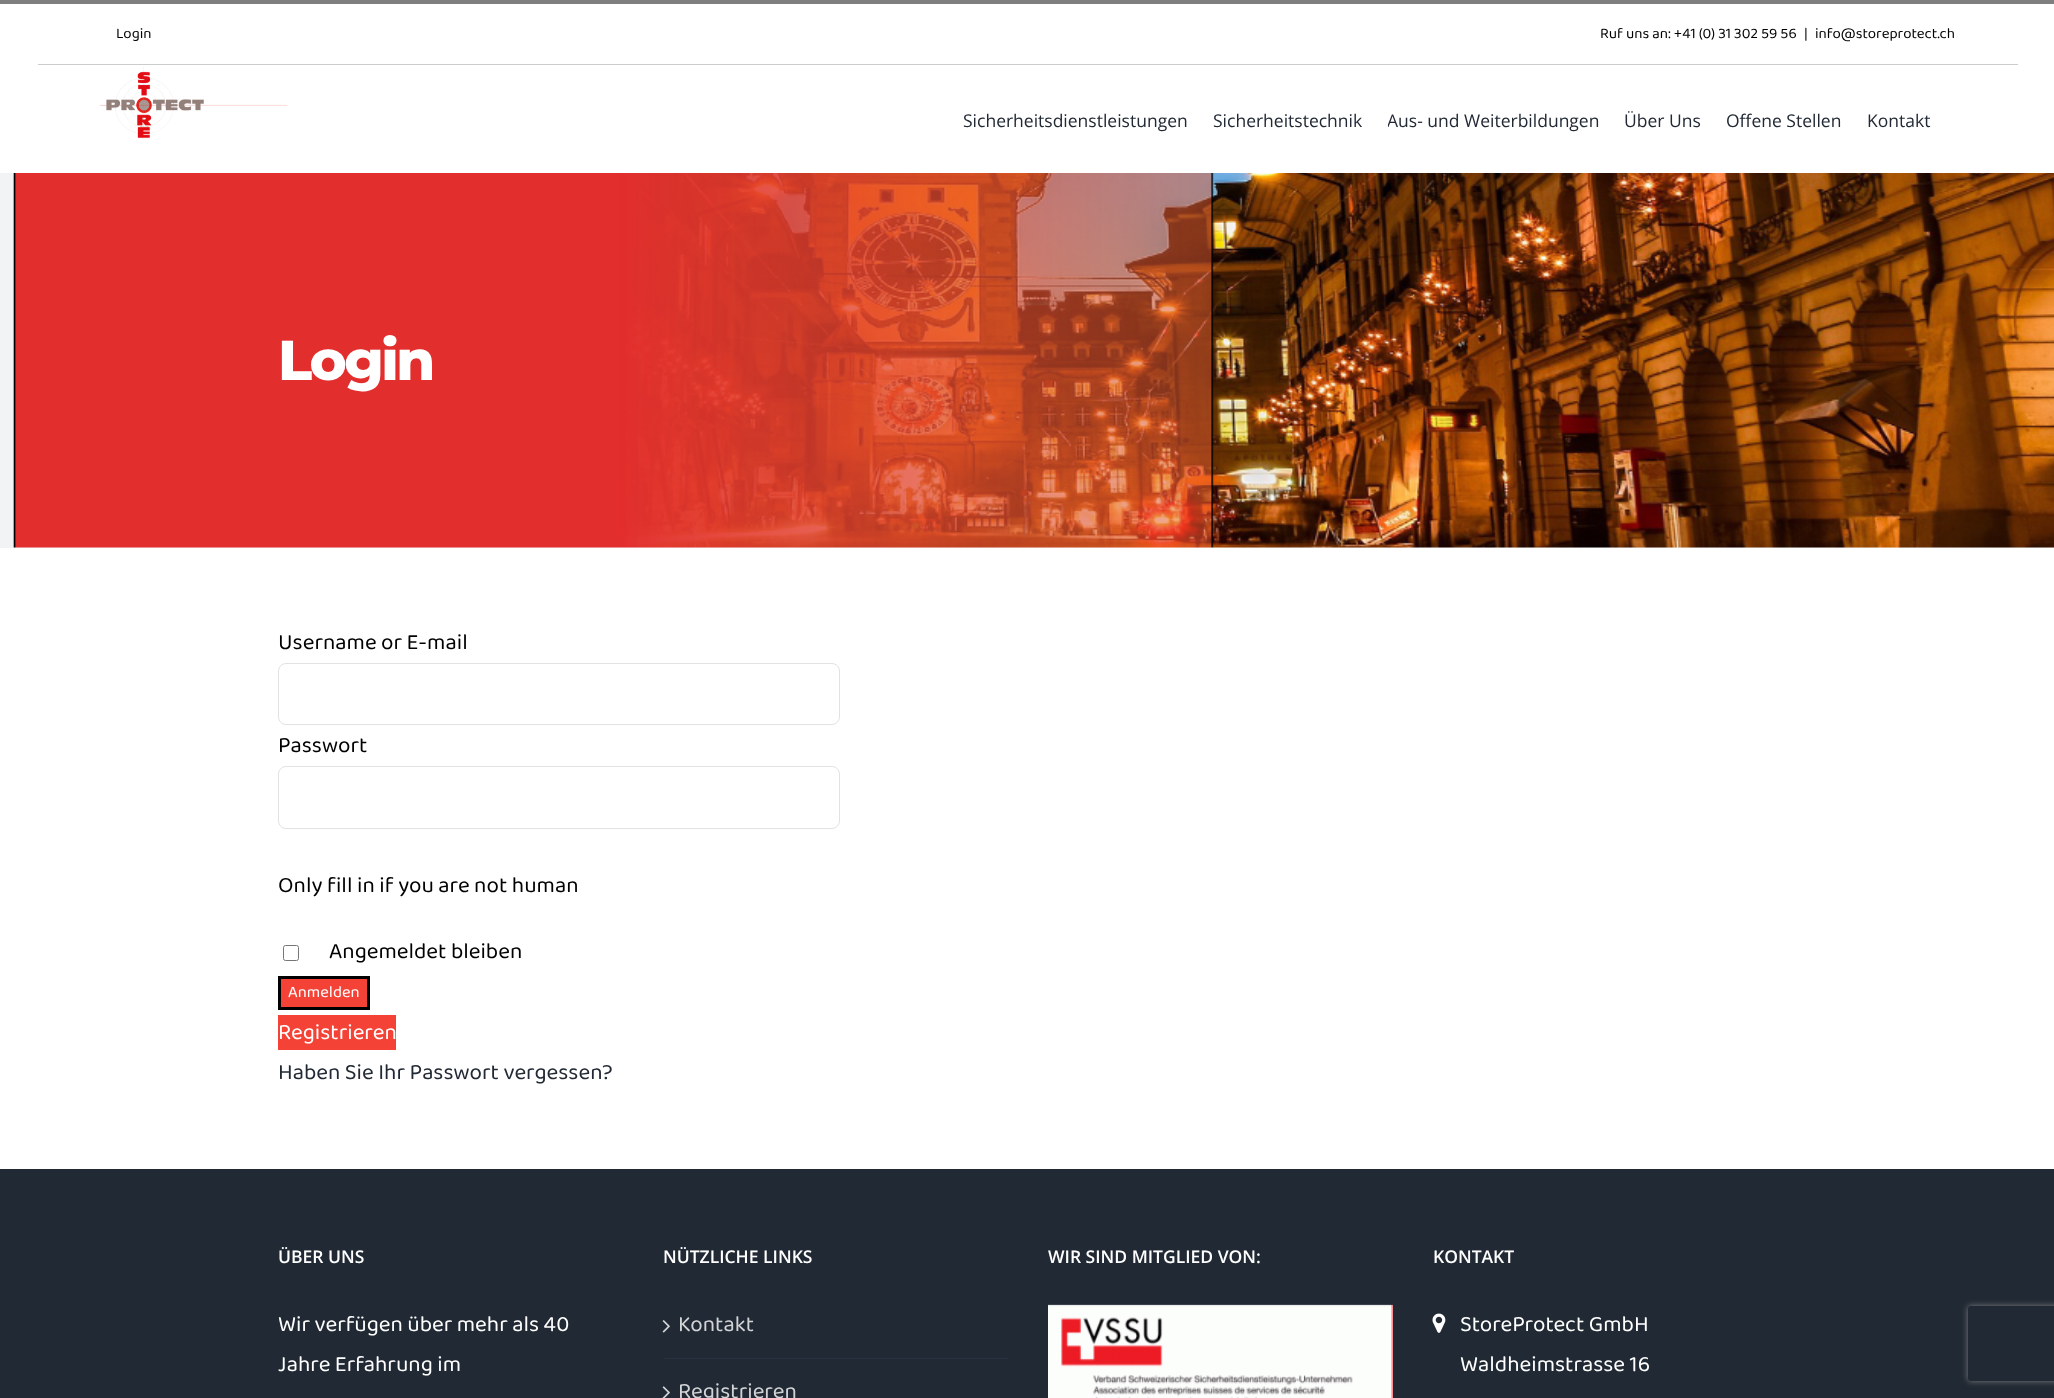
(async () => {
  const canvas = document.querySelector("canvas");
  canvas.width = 2054;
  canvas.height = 1398;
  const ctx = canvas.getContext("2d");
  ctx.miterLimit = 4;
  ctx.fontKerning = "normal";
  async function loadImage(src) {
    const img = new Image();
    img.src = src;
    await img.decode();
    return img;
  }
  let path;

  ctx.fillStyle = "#ffffff";
  ctx.fillRect(0, 0, 2054, 1398);
  ctx.fillStyle = "#7f7f7f";
  ctx.fillRect(0, 0, 2054, 4);
  ctx.fillStyle = "#cccccc";
  ctx.fillRect(38, 64, 1980, 1);
  ctx.drawImage(await loadImage("img/1.png"), 100, 66, 188, 73);
  ctx.fillStyle = "#f2f3f5";
  ctx.fillRect(0, 173, 2054, 375);
  ctx.drawImage(await loadImage("img/2.png"), 13, 173, 2041, 375);
  ctx.beginPath();
  ctx.roundRect(278.5, 663.5, 561, 61, 7.5);
  ctx.strokeStyle = "#e2e2e2";
  ctx.stroke();
  ctx.beginPath();
  ctx.roundRect(278.5, 766.5, 561, 62, 7.5);
  ctx.stroke();
  ctx.beginPath();
  ctx.roundRect(283.5, 945.5, 15, 15, 2);
  ctx.strokeStyle = "#767676";
  ctx.stroke();
  ctx.fillStyle = "#f44336";
  ctx.beginPath();
  ctx.rect(279.5, 977.5, 89, 31);
  ctx.fill();
  ctx.strokeStyle = "#000000";
  ctx.lineWidth = 3;
  ctx.stroke();
  for (const [x, y, w, h, color] of [
    [278, 1015, 118, 35, "#f44336"],
    [0, 1169, 2054, 229, "#212934"],
    [663, 1358, 345, 1, "#26303e"],
  ]) {
    ctx.fillStyle = color;
    ctx.fillRect(x, y, w, h);
  }
  ctx.drawImage(await loadImage("img/3.png"), 662, 1320, 8, 13);
  ctx.drawImage(await loadImage("img/4.png"), 662, 1386, 8, 12);
  ctx.drawImage(await loadImage("img/5.png"), 1048, 1304, 345, 94);
  ctx.drawImage(await loadImage("img/6.png"), 1432, 1313, 14, 20);
  ctx.save();
  path = new Path2D("M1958 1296H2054V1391H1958ZM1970.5 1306H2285.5C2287 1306 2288 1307 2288 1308.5V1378.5C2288 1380 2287 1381 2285.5 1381H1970.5C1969 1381 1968 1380 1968 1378.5V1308.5C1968 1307 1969 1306 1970.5 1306Z");
  ctx.clip(path, "evenodd");
  ctx.fillStyle = "#808080";
  ctx.filter = "blur(3px)";
  ctx.beginPath();
  ctx.roundRect(1968, 1306, 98, 75, 2.5);
  ctx.fill();
  ctx.filter = "none";
  ctx.restore();
  ctx.font = "15px 'Baloo 2'";
  ctx.fillStyle = "#000000";
  for (const [text, x, y] of [
    ["Login", 116, 38],
    ["Ruf uns an: +41 (0) 31 302 59 56", 1600, 38],
    ["|", 1804, 38],
    ["info@storeprotect.ch", 1815, 38],
  ]) {
    ctx.fillText(text, x, y);
  }
  ctx.font = "17.5px Open Sans";
  ctx.fillStyle = "#212934";
  ctx.fillText("Sicherheitsdienstleistungen", 963, 127);
  ctx.fillText("Sicherheitstechnik", 1213, 127);
  ctx.save();
  ctx.beginPath();
  ctx.rect(1388, 66, 237, 105);
  ctx.clip();
  ctx.fillText("Aus- und Weiterbildungen", 1387, 127);
  ctx.restore();
  for (const [text, x, y] of [
    ["Über Uns", 1624, 127],
    ["Offene Stellen", 1726, 127],
    ["Kontakt", 1867, 127],
  ]) {
    ctx.fillText(text, x, y);
  }
  ctx.letterSpacing = "-2.5px";
  ctx.font = "100 56px Montserrat";
  ctx.fillStyle = "#ffffff";
  ctx.fillText("Login", 278, 380);
  ctx.letterSpacing = "0px";
  ctx.font = "22.5px 'Baloo 2'";
  ctx.fillStyle = "#000000";
  for (const [text, x, y] of [
    ["Username or E-mail", 278, 649],
    ["Passwort", 278, 752],
    ["Only fill in if you are not human", 278, 892],
    ["Angemeldet bleiben", 329, 958],
  ]) {
    ctx.fillText(text, x, y);
  }
  ctx.font = "16.5px 'Baloo 2'";
  ctx.fillStyle = "#ffffff";
  ctx.fillText("Anmelden", 288, 997);
  ctx.font = "22.5px 'Baloo 2'";
  ctx.fillText("Registrieren", 278, 1039);
  ctx.fillStyle = "#212934";
  ctx.fillText("Haben Sie Ihr Passwort vergessen?", 278, 1079);
  ctx.font = "600 17.5px Open Sans";
  ctx.fillStyle = "#ffffff";
  ctx.fillText("ÜBER UNS", 278, 1263);
  ctx.font = "22.5px 'Baloo 2'";
  ctx.fillText("Wir verfügen über mehr als 40", 278, 1331);
  ctx.fillText("Jahre Erfahrung im", 278, 1371);
  ctx.font = "600 17.5px Open Sans";
  ctx.fillText("NÜTZLICHE LINKS", 663, 1263);
  ctx.font = "22.5px 'Baloo 2'";
  ctx.fillStyle = "#d3d4d6";
  ctx.fillText("Kontakt", 678, 1331);
  ctx.fillText("Registrieren", 678, 1398);
  ctx.font = "600 17.5px Open Sans";
  ctx.fillStyle = "#ffffff";
  ctx.fillText("WIR SIND MITGLIED VON:", 1048, 1263);
  ctx.fillText("KONTAKT", 1433, 1263);
  ctx.font = "22.5px 'Baloo 2'";
  ctx.fillText("StoreProtect GmbH", 1460, 1331);
  ctx.fillText("Waldheimstrasse 16", 1460, 1371);
})();
